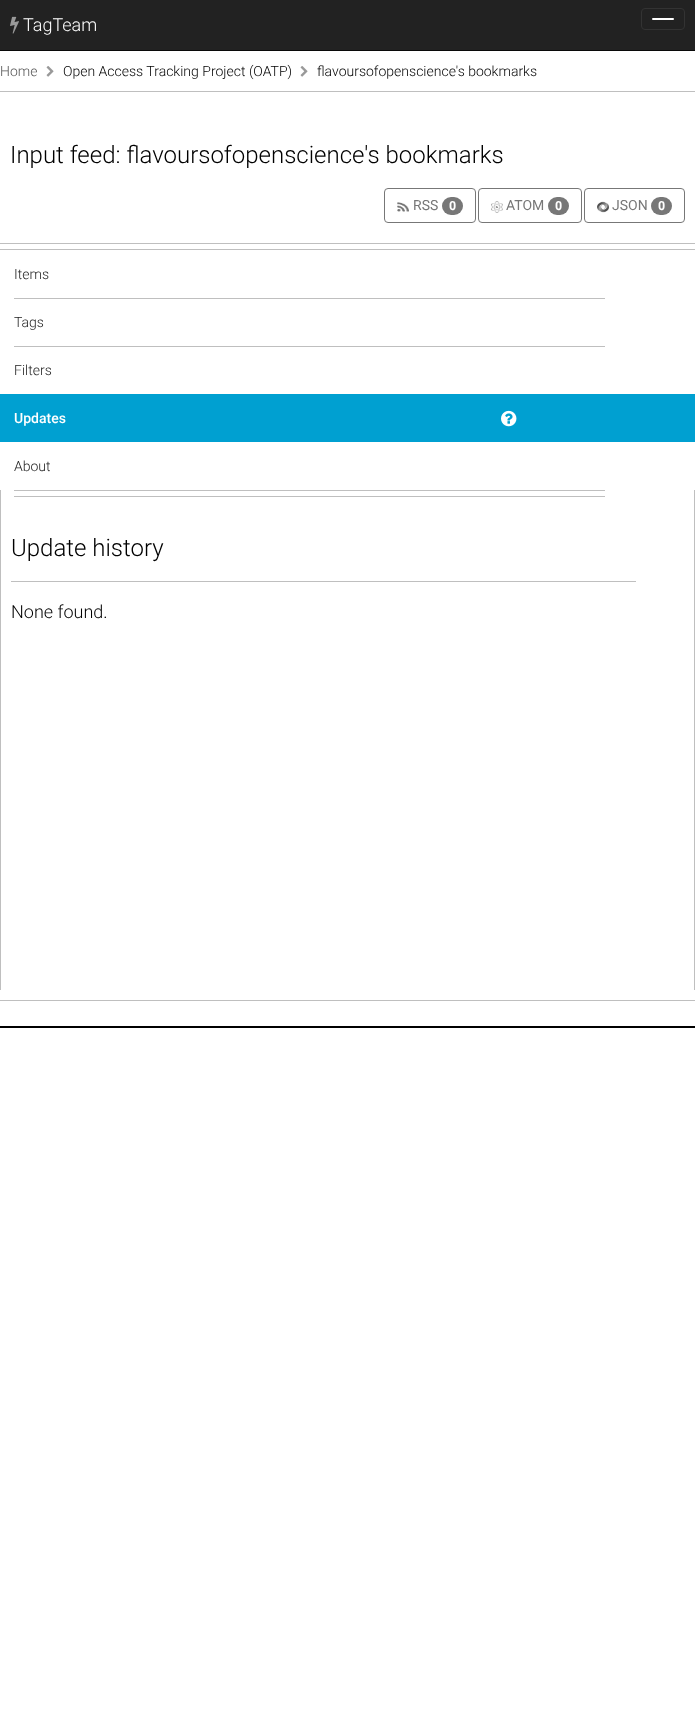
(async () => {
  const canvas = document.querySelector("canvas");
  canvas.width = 695;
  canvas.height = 1730;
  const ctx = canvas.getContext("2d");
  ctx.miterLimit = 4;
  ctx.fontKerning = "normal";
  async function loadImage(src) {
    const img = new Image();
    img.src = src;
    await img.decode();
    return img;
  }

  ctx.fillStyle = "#ffffff";
  ctx.fillRect(0, 0, 695, 1730);
  ctx.fillStyle = "#222222";
  ctx.fillRect(0, 0, 695, 50);
  ctx.fillStyle = "#090909";
  ctx.fillRect(0, 50, 695, 1);
  ctx.drawImage(await loadImage("img/1.png"), 10, 16, 9, 18);
  ctx.beginPath();
  ctx.roundRect(641.5, 8.5, 43, 21, 3.5);
  ctx.strokeStyle = "#333333";
  ctx.stroke();
  ctx.fillStyle = "#ffffff";
  ctx.beginPath();
  ctx.roundRect(652, 18, 22, 2, 1);
  ctx.fill();
  ctx.fillStyle = "#bfbfbf";
  ctx.fillRect(0, 91, 695, 1);
  ctx.drawImage(await loadImage("img/2.png"), 46, 66, 8, 11);
  ctx.drawImage(await loadImage("img/2.png"), 300, 66, 8, 11);
  ctx.fillRect(0, 243, 695, 1);
  ctx.beginPath();
  ctx.roundRect(384.5, 188.5, 91, 34, 3.5);
  ctx.strokeStyle = "#777777";
  ctx.stroke();
  ctx.drawImage(await loadImage("img/3.png"), 397, 202, 12, 10);
  ctx.fillStyle = "#777777";
  ctx.beginPath();
  ctx.roundRect(442, 197, 21, 18, 9);
  ctx.fill();
  ctx.beginPath();
  ctx.roundRect(478.5, 188.5, 103, 34, 3.5);
  ctx.stroke();
  ctx.drawImage(await loadImage("img/4.png"), 491, 201, 12, 12);
  ctx.beginPath();
  ctx.roundRect(548, 197, 21, 18, 9);
  ctx.fill();
  ctx.beginPath();
  ctx.roundRect(584.5, 188.5, 100, 34, 3.5);
  ctx.stroke();
  ctx.drawImage(await loadImage("img/5.png"), 597, 201, 12, 12);
  ctx.beginPath();
  ctx.roundRect(651, 197, 21, 18, 9);
  ctx.fill();
  for (const [x, y, w, h, color] of [
    [0, 249, 695, 1, "#bfbfbf"],
    [0, 1000, 695, 1, "#bfbfbf"],
    [14, 298, 591, 1, "#bfbfbf"],
    [14, 346, 591, 1, "#bfbfbf"],
    [0, 394, 695, 48, "#00a0d1"],
  ]) {
    ctx.fillStyle = color;
    ctx.fillRect(x, y, w, h);
  }
  ctx.drawImage(await loadImage("img/6.png"), 501, 410, 16, 17);
  for (const [x, y, w, h, color] of [
    [14, 490, 591, 1, "#bfbfbf"],
    [14, 496, 591, 1, "#bfbfbf"],
    [694, 490, 1, 500, "#bfbfbf"],
    [0, 490, 1, 500, "#bfbfbf"],
    [11, 581, 625, 1, "#bfbfbf"],
    [0, 1026, 695, 2, "#000000"],
  ]) {
    ctx.fillStyle = color;
    ctx.fillRect(x, y, w, h);
  }
  ctx.font = "300 18px Roboto";
  ctx.fillStyle = "#ffffff";
  ctx.fillText("TagTeam", 23, 31);
  ctx.font = "300 14px Roboto";
  ctx.fillStyle = "#555555";
  ctx.fillText("Home", 0, 76);
  ctx.fillStyle = "#000000";
  ctx.fillText("Open Access Tracking Project (OATP)", 63, 76);
  ctx.fillText("flavoursofopenscience's bookmarks", 317, 76);
  ctx.font = "300 24px Roboto";
  ctx.fillText("Input feed: flavoursofopenscience's bookmarks", 10, 163);
  ctx.font = "14px Roboto";
  ctx.fillStyle = "#777777";
  ctx.fillText("RSS", 413, 210);
  ctx.font = "bold 12px Roboto";
  ctx.fillStyle = "#ffffff";
  ctx.fillText("0", 449, 210);
  ctx.font = "14px Roboto";
  ctx.fillStyle = "#777777";
  ctx.fillText("ATOM", 506, 210);
  ctx.font = "bold 12px Roboto";
  ctx.fillStyle = "#ffffff";
  ctx.fillText("0", 555, 210);
  ctx.font = "14px Roboto";
  ctx.fillStyle = "#777777";
  ctx.fillText("JSON", 612, 210);
  ctx.font = "bold 12px Roboto";
  ctx.fillStyle = "#ffffff";
  ctx.fillText("0", 658, 210);
  ctx.font = "300 14px Roboto";
  ctx.fillStyle = "#222222";
  for (const [text, x, y] of [
    ["Items", 14, 279],
    ["Tags", 14, 327],
    ["Filters", 14, 375],
  ]) {
    ctx.fillText(text, x, y);
  }
  ctx.font = "500 14px Roboto";
  ctx.fillStyle = "#ffffff";
  ctx.fillText("Updates", 14, 423);
  ctx.font = "300 14px Roboto";
  ctx.fillStyle = "#222222";
  ctx.fillText("About", 14, 471);
  ctx.font = "300 24px Roboto";
  ctx.fillStyle = "#000000";
  ctx.fillText("Update history", 11, 556);
  ctx.font = "300 18px Roboto";
  ctx.fillText("None found.", 11, 618);
})();
